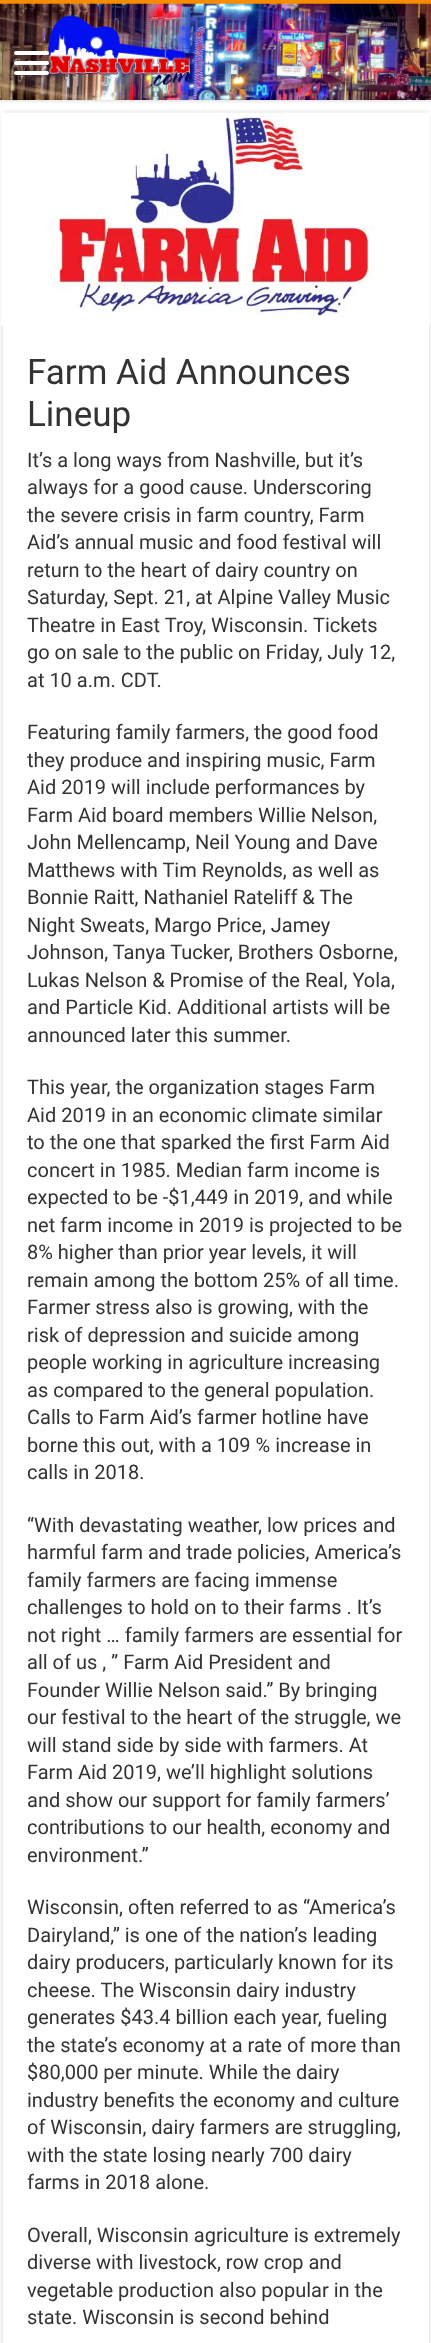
(async () => {
  const canvas = document.querySelector("canvas");
  canvas.width = 431;
  canvas.height = 2343;
  const ctx = canvas.getContext("2d");
  ctx.miterLimit = 4;
  ctx.fontKerning = "normal";
  async function loadImage(src) {
    const img = new Image();
    img.src = src;
    await img.decode();
    return img;
  }

  ctx.fillStyle = "#ffffff";
  ctx.fillRect(0, 0, 431, 2343);
  ctx.fillStyle = "#cacaca";
  ctx.filter = "blur(2px)";
  ctx.beginPath();
  ctx.rect(0, 0, 431, 100);
  ctx.fill();
  ctx.filter = "none";
  ctx.fillStyle = "#f88c00";
  ctx.fillRect(0, 0, 431, 4);
  ctx.drawImage(await loadImage("img/1.png"), 0, 3, 431, 97);
  ctx.fillStyle = "#ffffff";
  ctx.beginPath();
  ctx.roundRect(14, 51, 35, 4, 2);
  ctx.fill();
  ctx.beginPath();
  ctx.roundRect(14, 61, 35, 4, 2);
  ctx.fill();
  ctx.beginPath();
  ctx.roundRect(14, 71, 35, 4, 2);
  ctx.fill();
  ctx.fillStyle = "#cacaca";
  ctx.filter = "blur(2px)";
  ctx.beginPath();
  ctx.rect(3, 113, 426, 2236);
  ctx.fill();
  ctx.filter = "none";
  ctx.fillStyle = "#ffffff";
  ctx.fillRect(3, 326, 426, 2017);
  ctx.drawImage(await loadImage("img/2.png"), 1, 112, 429, 215);
  ctx.font = "35px Roboto";
  ctx.fillStyle = "#333333";
  ctx.fillText("Farm Aid Announces", 27, 384);
  ctx.fillText("Lineup", 27, 426);
  ctx.font = "20px Roboto";
  for (const [text, x, y] of [
    ["It’s a long ways from Nashville, but it’s", 27, 467],
    ["always for a good cause. Underscoring", 27, 494],
    ["the severe crisis in farm country, Farm", 27, 522],
    ["Aid’s annual music and food festival will", 27, 549],
    ["return to the heart of dairy country on", 27, 577],
    ["Saturday, Sept. 21, at Alpine Valley Music", 27, 604],
    ["Theatre in East Troy, Wisconsin. Tickets", 27, 632],
    ["go on sale to the public on Friday, July 12,", 27, 659],
    ["at 10 a.m. CDT.", 27, 687],
    ["Featuring family farmers, the good food", 27, 739],
    ["they produce and inspiring music, Farm", 27, 767],
    ["Aid 2019 will include performances by", 27, 794],
    ["Farm Aid board members Willie Nelson,", 27, 822],
    ["John Mellencamp, Neil Young and Dave", 27, 849],
    ["Matthews with Tim Reynolds, as well as", 27, 877],
    ["Bonnie Raitt, Nathaniel Rateliff & The", 27, 904],
    ["Night Sweats, Margo Price, Jamey", 27, 932],
    ["Johnson, Tanya Tucker, Brothers Osborne,", 27, 959],
    ["Lukas Nelson & Promise of the Real, Yola,", 27, 987],
    ["and Particle Kid. Additional artists will be", 27, 1014],
    ["announced later this summer.", 27, 1042],
    ["This year, the organization stages Farm", 27, 1094],
    ["Aid 2019 in an economic climate similar", 27, 1122],
    ["to the one that sparked the first Farm Aid", 27, 1149],
    ["concert in 1985. Median farm income is", 27, 1177],
    ["expected to be -$1,449 in 2019, and while", 27, 1204],
    ["net farm income in 2019 is projected to be", 27, 1232],
    ["8% higher than prior year levels, it will", 27, 1259],
    ["remain among the bottom 25% of all time.", 27, 1287],
    ["Farmer stress also is growing, with the", 27, 1314],
    ["risk of depression and suicide among", 27, 1342],
    ["people working in agriculture increasing", 27, 1369],
    ["as compared to the general population.", 27, 1397],
    ["Calls to Farm Aid’s farmer hotline have", 27, 1424],
    ["borne this out, with a 109 % increase in", 27, 1452],
    ["calls in 2018.", 27, 1479],
    ["“With devastating weather, low prices and", 27, 1532],
    ["harmful farm and trade policies, America’s", 27, 1559],
    ["family farmers are facing immense", 27, 1587],
    ["challenges to hold on to their farms . It’s", 27, 1614],
    ["not right … family farmers are essential for", 27, 1642],
    ["all of us , ” Farm Aid President and", 27, 1669],
    ["Founder Willie Nelson said.” By bringing", 27, 1697],
    ["our festival to the heart of the struggle, we", 27, 1724],
    ["will stand side by side with farmers. At", 27, 1752],
    ["Farm Aid 2019, we’ll highlight solutions", 27, 1779],
    ["and show our support for family farmers’", 27, 1807],
    ["contributions to our health, economy and", 27, 1834],
    ["environment.”", 27, 1862],
    ["Wisconsin, often referred to as “America’s", 27, 1914],
    ["Dairyland,” is one of the nation’s leading", 27, 1942],
    ["dairy producers, particularly known for its", 27, 1969],
    ["cheese. The Wisconsin dairy industry", 27, 1997],
    ["generates $43.4 billion each year, fueling", 27, 2024],
    ["the state’s economy at a rate of more than", 27, 2052],
    ["$80,000 per minute. While the dairy", 27, 2079],
    ["industry benefits the economy and culture", 27, 2107],
    ["of Wisconsin, dairy farmers are struggling,", 27, 2134],
    ["with the state losing nearly 700 dairy", 27, 2162],
    ["farms in 2018 alone.", 27, 2189],
    ["Overall, Wisconsin agriculture is extremely", 27, 2242],
    ["diverse with livestock, row crop and", 27, 2269],
    ["vegetable production also popular in the", 27, 2297],
    ["state. Wisconsin is second behind", 27, 2324],
  ]) {
    ctx.fillText(text, x, y);
  }
})();
